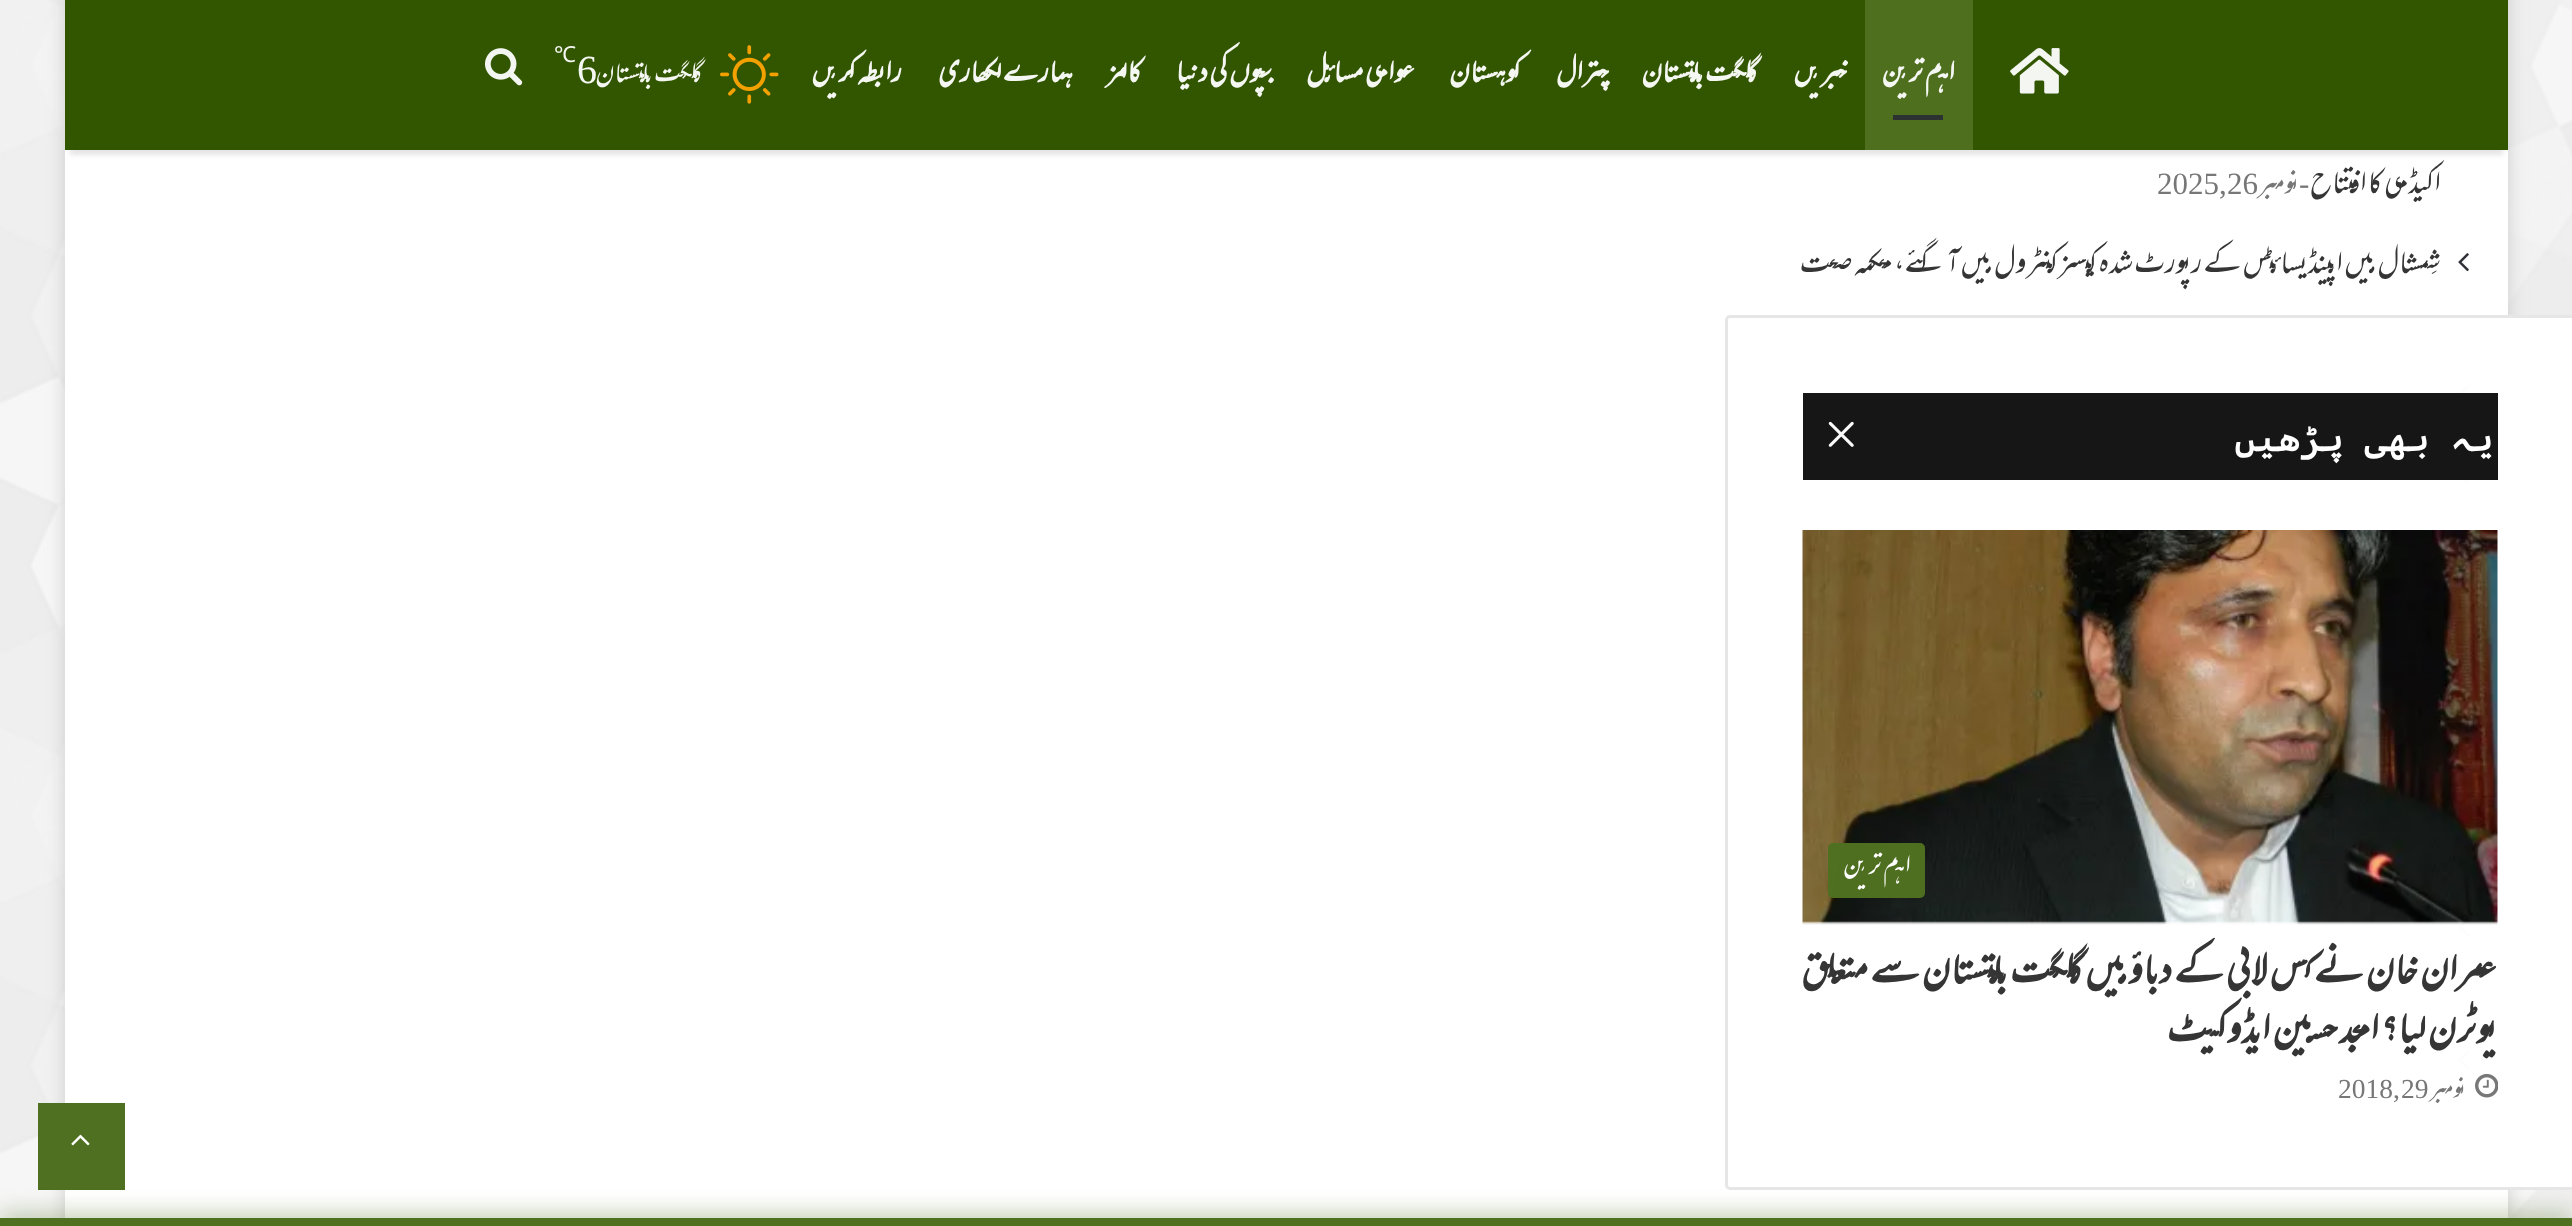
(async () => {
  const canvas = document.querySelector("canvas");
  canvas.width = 2572;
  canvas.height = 1226;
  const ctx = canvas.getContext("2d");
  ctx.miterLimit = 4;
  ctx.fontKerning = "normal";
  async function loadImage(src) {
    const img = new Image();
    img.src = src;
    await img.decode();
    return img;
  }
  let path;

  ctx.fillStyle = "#f7f7f7";
  ctx.fillRect(0, 0, 2572, 1226);
  ctx.drawImage(await loadImage("img/1.png"), 0, 0, 2572, 1218);
  ctx.fillStyle = "rgba(171, 171, 171, 0.5)";
  ctx.filter = "blur(9px)";
  ctx.beginPath();
  ctx.rect(65, -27, 2443, 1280);
  ctx.fill();
  ctx.filter = "none";
  ctx.fillStyle = "#ffffff";
  ctx.fillRect(65, 150, 2443, 1068);
  ctx.fillStyle = "rgba(0, 0, 0, 0.1)";
  ctx.filter = "blur(2.5px)";
  ctx.beginPath();
  ctx.rect(70, 15, 2433, 140);
  ctx.fill();
  ctx.filter = "none";
  ctx.fillStyle = "#325600";
  ctx.fillRect(65, 0, 2443, 150);
  ctx.drawImage(await loadImage("img/2.png"), 2010, 48, 59, 46);
  ctx.fillStyle = "#4e6f1e";
  ctx.fillRect(1865, 0, 108, 150);
  ctx.fillStyle = "#2c3131";
  ctx.fillRect(1893, 115, 50, 5);
  ctx.drawImage(await loadImage("img/3.png"), 720, 45, 59, 59);
  ctx.drawImage(await loadImage("img/4.png"), 485, 48, 38, 38);
  ctx.drawImage(await loadImage("img/5.png"), 2458, 253, 11, 19);
  ctx.drawImage(await loadImage("img/6.png"), 2459, 385, 10, 8);
  ctx.drawImage(await loadImage("img/7.png"), 2463, 480, 6, 4);
  ctx.drawImage(await loadImage("img/5.png"), 2458, 598, 11, 19);
  ctx.drawImage(await loadImage("img/5.png"), 2458, 678, 11, 19);
  ctx.drawImage(await loadImage("img/5.png"), 2458, 758, 11, 19);
  ctx.drawImage(await loadImage("img/5.png"), 2458, 838, 11, 19);
  ctx.drawImage(await loadImage("img/5.png"), 2458, 918, 11, 19);
  ctx.drawImage(await loadImage("img/8.png"), 2458, 1050, 11, 19);
  ctx.fillStyle = "rgba(255, 255, 255, 0.99)";
  path = new Path2D("M1730 316.5H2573.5V1188.5H1730C1728 1188.5 1726.5 1187 1726.5 1185V320C1726.5 318 1728 316.5 1730 316.5Z");
  ctx.fill(path);
  ctx.strokeStyle = "#e6e6e6";
  ctx.lineWidth = 3;
  ctx.stroke(path);
  ctx.fillStyle = "#161616";
  ctx.fillRect(1803, 393, 695, 87);
  ctx.drawImage(await loadImage("img/9.png"), 1828, 421, 26, 26);
  ctx.drawImage(await loadImage("img/10.png"), 1802, 530, 696, 395);
  ctx.fillStyle = "rgba(79, 112, 32, 0.99)";
  ctx.beginPath();
  ctx.roundRect(1828, 843, 97, 55, 5);
  ctx.fill();
  ctx.drawImage(await loadImage("img/11.png"), 2475, 1073, 23, 25);
  ctx.fillStyle = "#4f7020";
  ctx.fillRect(38, 1103, 87, 87);
  ctx.drawImage(await loadImage("img/12.png"), 71, 1134, 19, 12);
  ctx.fillStyle = "rgba(79, 112, 32, 0.7)";
  ctx.filter = "blur(12.5px)";
  ctx.beginPath();
  ctx.rect(0, 1218, 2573, 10);
  ctx.fill();
  ctx.filter = "none";
  ctx.fillStyle = "#4f7020";
  ctx.fillRect(0, 1218, 2572, 8);
  ctx.direction = "rtl";
  ctx.font = "bold 32.5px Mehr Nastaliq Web";
  ctx.fillStyle = "#f5f7f2";
  for (const [text, x, y] of [
    ["اہم ترین", 1955, 83],
    ["خبریں", 1847, 83],
    ["گلگت بلتستان", 1758, 83],
    ["چترال", 1609, 83],
    ["کوہستان", 1521, 83],
    ["عوامی مسائل", 1415, 83],
    ["بچوں کی دنیا", 1272, 83],
    ["کالمز", 1142, 83],
    ["ہمارے لکھاری", 1073, 83],
    ["رابطہ کریں", 902, 83],
  ]) {
    ctx.fillText(text, x, y);
  }
  ctx.font = "30px Mehr Nastaliq Web";
  ctx.fillText("گلگت بلتستان", 703, 83);
  ctx.direction = "ltr";
  ctx.font = "40px Liberation Serif";
  ctx.fillText("6", 577, 83);
  ctx.font = "22px Noto Sans";
  ctx.fillText("℃", 554, 62);
  ctx.direction = "rtl";
  ctx.font = "34.1px Mehr Nastaliq Web";
  ctx.fillStyle = "#353535";
  ctx.fillText("اکیڈمی کا افتتاح", 2441, 194);
  ctx.direction = "ltr";
  ctx.font = "31px Liberation Serif";
  ctx.fillStyle = "#777777";
  ctx.fillText("-", 2299, 194);
  ctx.fillText("26", 2227, 194);
  ctx.direction = "rtl";
  ctx.font = "31px Mehr Nastaliq Web";
  ctx.fillText("نومبر", 2299, 194);
  ctx.direction = "ltr";
  ctx.font = "31px Liberation Serif";
  ctx.fillText("2025,", 2157, 194);
  ctx.direction = "rtl";
  ctx.font = "34.1px Mehr Nastaliq Web";
  ctx.fillStyle = "#353535";
  ctx.fillText("شِمشال میں اپینڈیسائٹس کے رپورٹ شدہ کیسز کنٹرول میں آ گئے، محکمہ صحت", 2441, 274);
  ctx.wordSpacing = "-2px";
  ctx.font = "600 37.5px Cascadia Code";
  ctx.fillStyle = "#ffffff";
  ctx.fillText("یہ بھی پڑھیں", 2494, 451);
  ctx.wordSpacing = "0px";
  ctx.font = "30px Mehr Nastaliq Web";
  ctx.fillText("اہم ترین", 1911, 875);
  ctx.font = "bold 45px Mehr Nastaliq Web";
  ctx.fillStyle = "#353535";
  ctx.fillText("عمران خان نے کس لابی کے دباؤ میں گلگت بلتستان سے متعلق", 2497, 985);
  ctx.fillText("یوٹرن لیا؟ امجد حسین ایڈوکیٹ", 2497, 1044);
  ctx.font = "27.5px Mehr Nastaliq Web";
  ctx.fillStyle = "#777777";
  ctx.fillText("نومبر", 2466, 1098);
  ctx.direction = "ltr";
  ctx.font = "27.5px Liberation Serif";
  ctx.fillText("29", 2401, 1098);
  ctx.fillText("2018,", 2338, 1098);
})();
